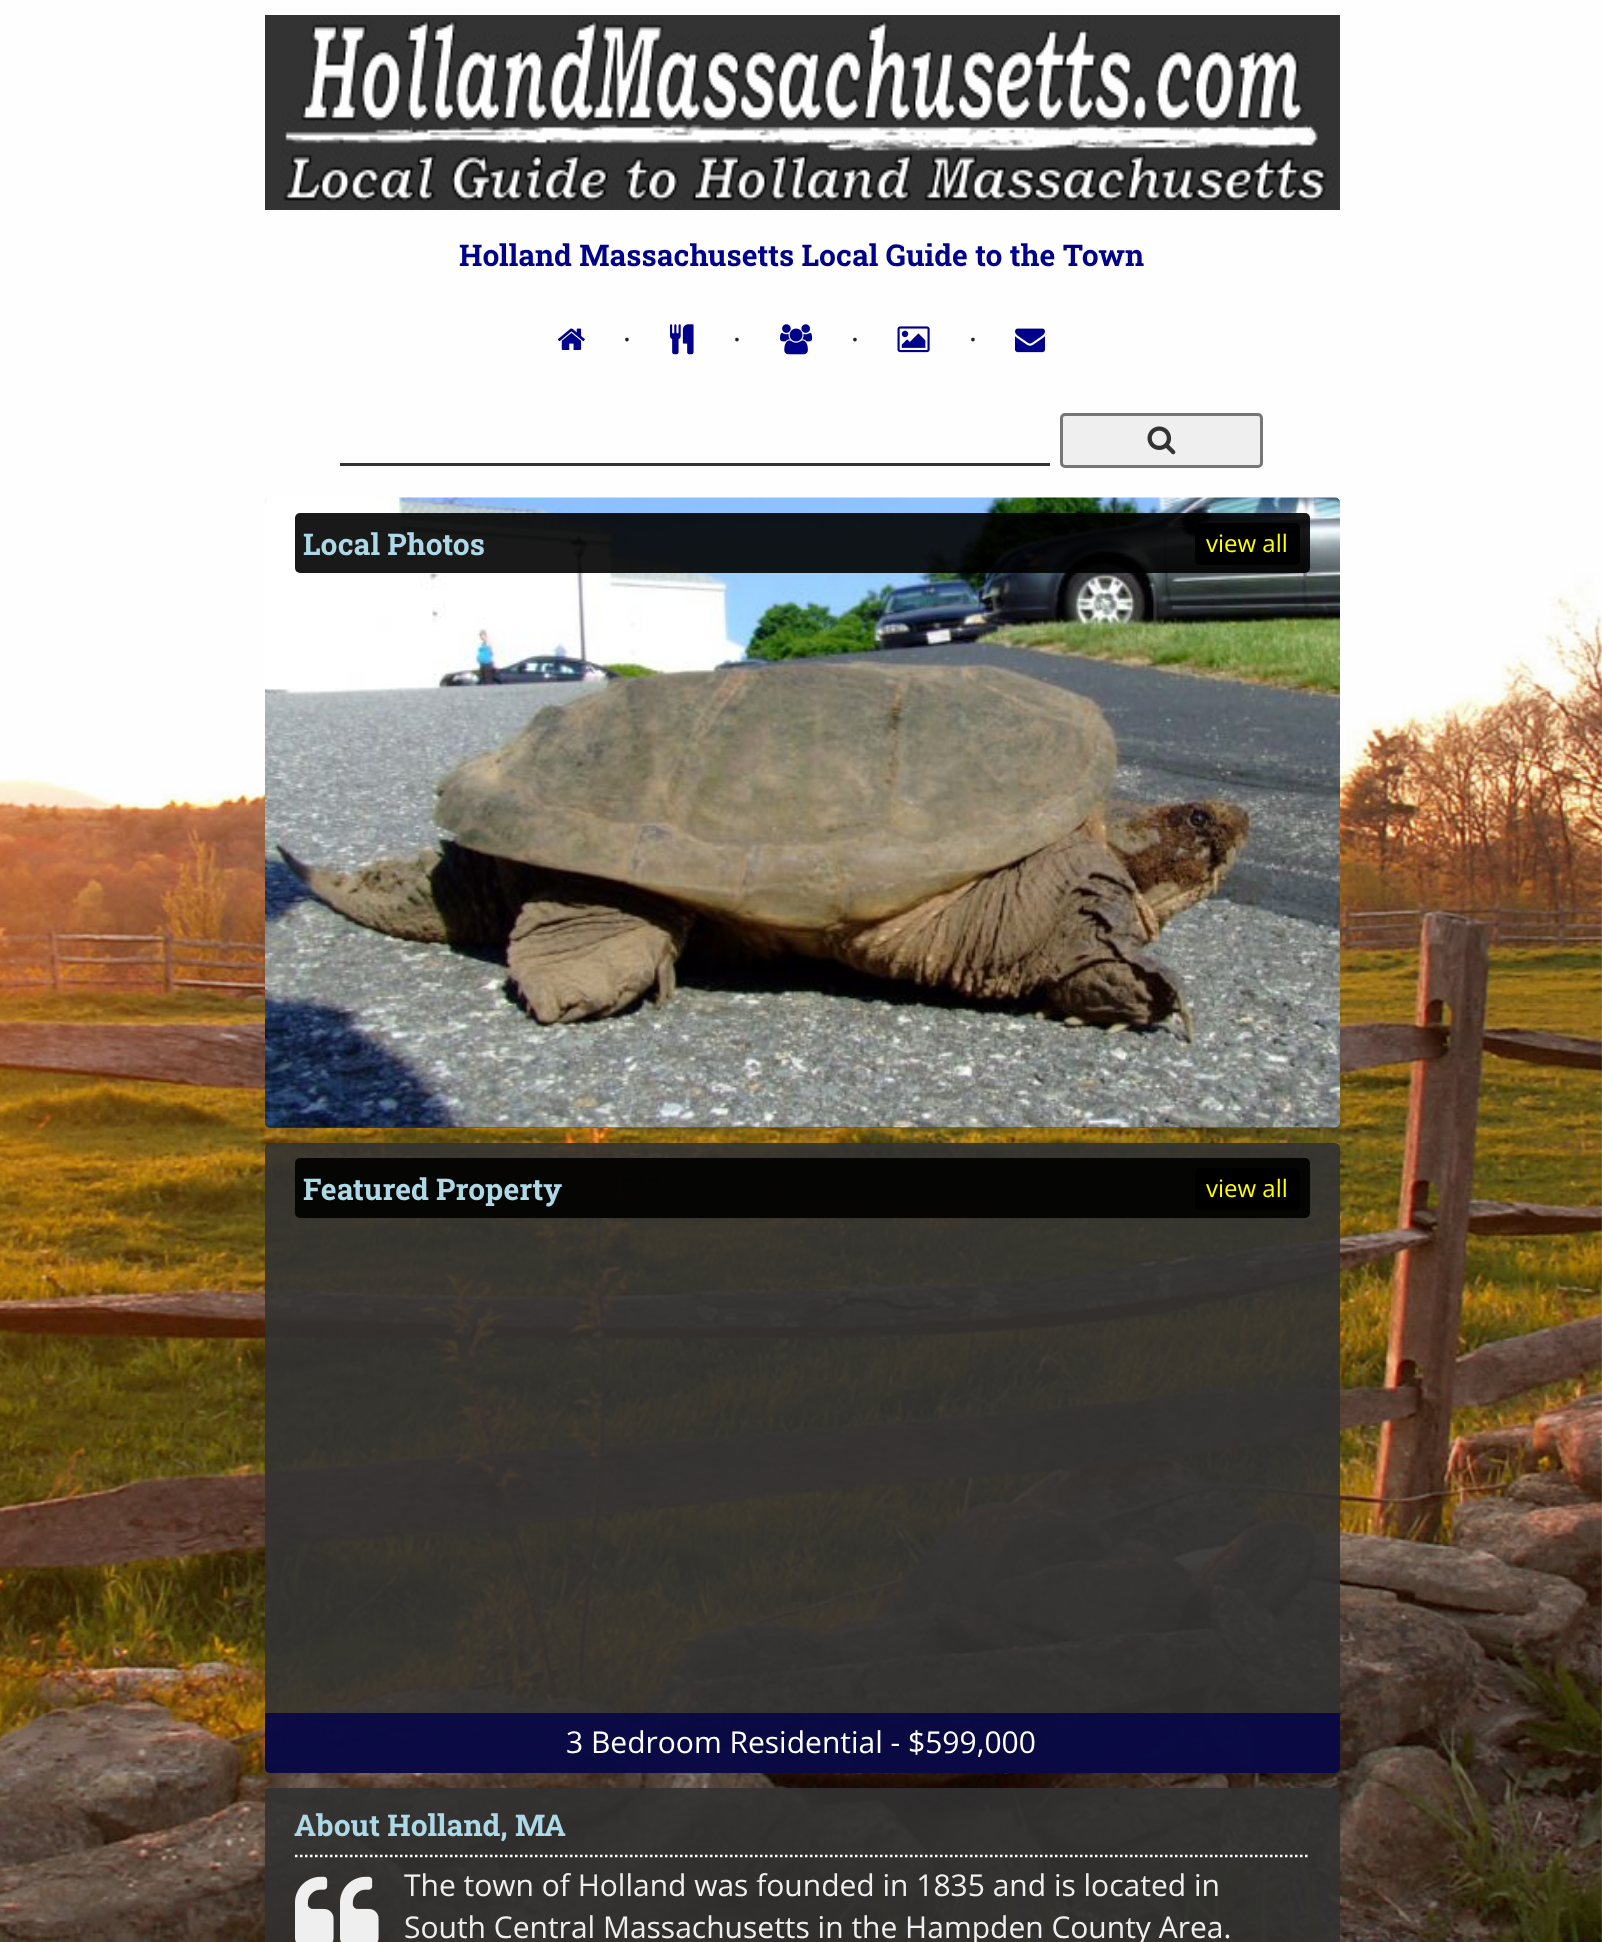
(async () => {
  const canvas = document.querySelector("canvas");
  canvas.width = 1602;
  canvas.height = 1942;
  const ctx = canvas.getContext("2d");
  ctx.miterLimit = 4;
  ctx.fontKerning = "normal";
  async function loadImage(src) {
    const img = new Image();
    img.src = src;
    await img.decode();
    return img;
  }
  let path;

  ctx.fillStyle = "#ffffff";
  ctx.fillRect(0, 0, 1602, 1942);
  ctx.drawImage(await loadImage("img/1.png"), 0, 0, 1602, 1942);
  ctx.drawImage(await loadImage("img/2.png"), 265, 15, 1075, 195);
  ctx.drawImage(await loadImage("img/3.png"), 558, 328, 27, 22);
  ctx.drawImage(await loadImage("img/4.png"), 670, 324, 24, 31);
  ctx.drawImage(await loadImage("img/5.png"), 780, 324, 33, 31);
  ctx.drawImage(await loadImage("img/6.png"), 897, 326, 33, 27);
  ctx.drawImage(await loadImage("img/7.png"), 1015, 328, 30, 25);
  ctx.fillStyle = "#333333";
  ctx.fillRect(340, 463, 710, 3);
  ctx.fillStyle = "#efefef";
  ctx.beginPath();
  ctx.roundRect(1061.5, 414.5, 200, 52, 3.5);
  ctx.fill();
  ctx.strokeStyle = "#767676";
  ctx.lineWidth = 3;
  ctx.stroke();
  ctx.drawImage(await loadImage("img/8.png"), 1147, 426, 29, 29);
  ctx.fillStyle = "rgba(50, 50, 50, 0.9)";
  ctx.beginPath();
  ctx.roundRect(265, 498, 1075, 630, 5);
  ctx.fill();
  ctx.drawImage(await loadImage("img/9.png"), 265, 497, 1075, 631);
  ctx.fillStyle = "rgba(0, 0, 0, 0.9)";
  ctx.beginPath();
  ctx.roundRect(295, 513, 1015, 60, 5);
  ctx.fill();
  ctx.fillStyle = "#000000";
  ctx.beginPath();
  ctx.roundRect(1195, 523, 105, 42, 5);
  ctx.fill();
  ctx.fillStyle = "rgba(50, 50, 50, 0.9)";
  ctx.beginPath();
  ctx.roundRect(265, 1143, 1075, 630, 5);
  ctx.fill();
  ctx.fillStyle = "rgba(0, 0, 0, 0.9)";
  ctx.beginPath();
  ctx.roundRect(295, 1158, 1015, 60, 5);
  ctx.fill();
  ctx.fillStyle = "#000000";
  ctx.beginPath();
  ctx.roundRect(1195, 1168, 105, 42, 5);
  ctx.fill();
  ctx.fillStyle = "rgba(0, 0, 72, 0.8)";
  ctx.beginPath();
  ctx.roundRect(265, 1713, 1075, 60, [0, 0, 5, 5]);
  ctx.fill();
  ctx.fillStyle = "rgba(50, 50, 50, 0.9)";
  ctx.beginPath();
  ctx.roundRect(265, 1788, 1075, 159, 5);
  ctx.fill();
  path = new Path2D("M295 1856H1310");
  ctx.strokeStyle = "#ffffff";
  ctx.lineWidth = 2.5;
  ctx.setLineDash([2.5, 2.5]);
  ctx.stroke(path);
  ctx.drawImage(await loadImage("img/10.png"), 295, 1876, 84, 66);
  ctx.font = "bold 30px Roboto Slab";
  ctx.fillStyle = "#00008b";
  ctx.fillText("Holland Massachusetts Local Guide to the Town", 459, 266);
  ctx.font = "30px Open Sans";
  ctx.fillStyle = "#222222";
  for (const [text, x, y] of [
    ["·", 623, 350],
    ["·", 733, 350],
    ["·", 851, 350],
    ["·", 969, 350],
  ]) {
    ctx.fillText(text, x, y);
  }
  ctx.font = "bold 30px Roboto Slab";
  ctx.fillStyle = "#add8e6";
  ctx.fillText("Local Photos", 303, 555);
  ctx.font = "24px Open Sans";
  ctx.fillStyle = "#ffff00";
  ctx.fillText("view all", 1206, 552);
  ctx.font = "bold 30px Roboto Slab";
  ctx.fillStyle = "#add8e6";
  ctx.fillText("Featured Property", 303, 1200);
  ctx.font = "24px Open Sans";
  ctx.fillStyle = "#ffff00";
  ctx.fillText("view all", 1206, 1197);
  ctx.font = "30px Open Sans";
  ctx.fillStyle = "#ffffff";
  ctx.fillText("3 Bedroom Residential - $599,000", 566, 1753);
  ctx.font = "bold 30px Roboto Slab";
  ctx.fillStyle = "#add8e6";
  ctx.fillText("About Holland, MA", 294, 1836);
  ctx.font = "30px Open Sans";
  ctx.fillStyle = "#efefef";
  ctx.fillText("The town of Holland was founded in 1835 and is located in", 404, 1896);
  ctx.fillText("South Central Massachusetts in the Hampden County Area.", 404, 1938);
})();
